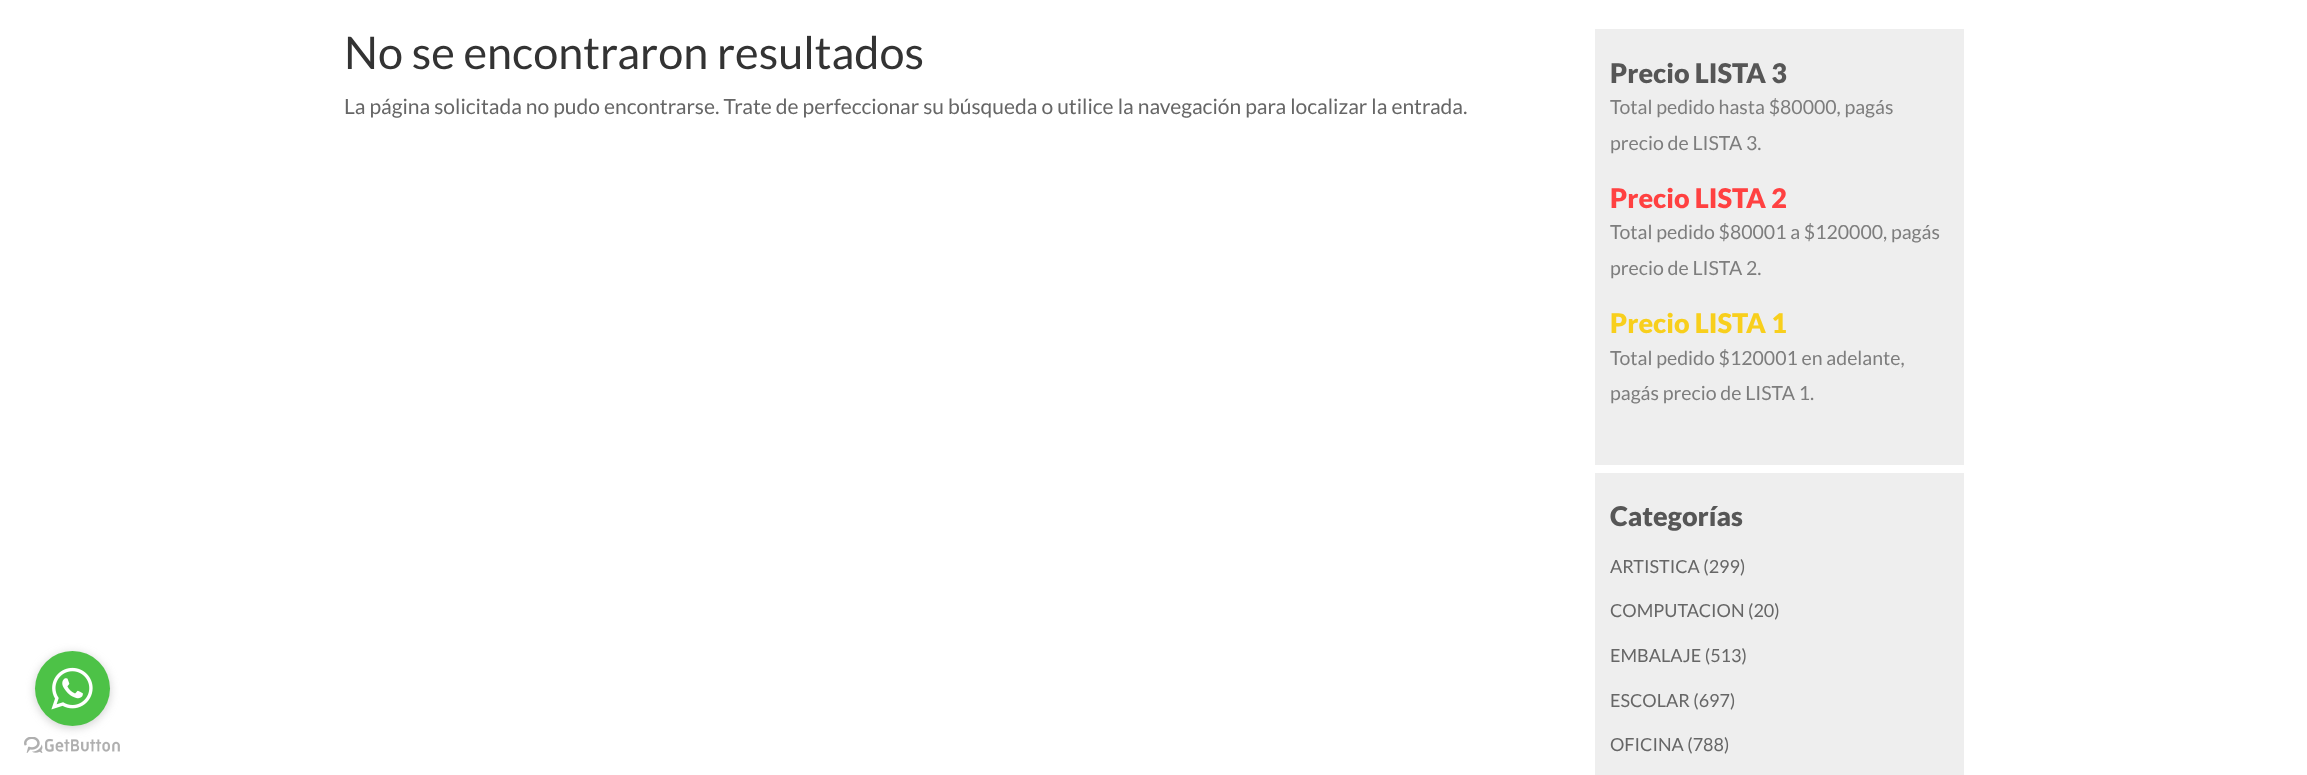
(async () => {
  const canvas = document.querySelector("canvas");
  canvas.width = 2307;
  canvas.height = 775;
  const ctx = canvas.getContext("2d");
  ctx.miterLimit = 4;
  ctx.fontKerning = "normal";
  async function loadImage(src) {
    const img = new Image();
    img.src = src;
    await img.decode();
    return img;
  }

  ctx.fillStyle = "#ffffff";
  ctx.fillRect(0, 0, 2307, 775);
  ctx.drawImage(await loadImage("img/2.png"), 24, 737, 96, 16);
  ctx.fillStyle = "rgba(136, 136, 136, 0.4)";
  ctx.filter = "blur(5px)";
  ctx.beginPath();
  ctx.roundRect(35, 653, 75, 75, 37.5);
  ctx.fill();
  ctx.filter = "none";
  ctx.fillStyle = "#4dc247";
  ctx.beginPath();
  ctx.arc(72.5, 688.5, 37.5, 0, Math.PI * 2);
  ctx.fill();
  ctx.drawImage(await loadImage("img/1.png"), 51, 667, 42, 43);
  ctx.fillStyle = "#eeeeee";
  ctx.fillRect(1595, 29, 369, 436);
  ctx.fillRect(1595, 473, 369, 302);
  ctx.font = "45px Lato";
  ctx.fillStyle = "#333333";
  ctx.fillText("No se encontraron resultados", 344, 69);
  ctx.font = "21px Lato";
  ctx.fillStyle = "#666666";
  ctx.fillText("La página solicitada no pudo encontrarse. Trate de perfeccionar su búsqueda o utilice la navegación para localizar la entrada.", 344, 114);
  ctx.font = "900 27px Lato";
  ctx.fillStyle = "#565656";
  ctx.fillText("Precio LISTA 3", 1610, 83);
  ctx.font = "19.5px Lato";
  ctx.fillStyle = "#7d7d7d";
  ctx.fillText("Total pedido hasta $80000, pagás", 1610, 114);
  ctx.fillText("precio de LISTA 3.", 1610, 150);
  ctx.font = "900 27px Lato";
  ctx.fillStyle = "#ff4141";
  ctx.fillText("Precio LISTA 2", 1610, 208);
  ctx.font = "19.5px Lato";
  ctx.fillStyle = "#7d7d7d";
  ctx.fillText("Total pedido $80001 a $120000, pagás", 1610, 239);
  ctx.fillText("precio de LISTA 2.", 1610, 275);
  ctx.font = "900 27px Lato";
  ctx.fillStyle = "#f8cf1c";
  ctx.fillText("Precio LISTA 1", 1610, 333);
  ctx.font = "19.5px Lato";
  ctx.fillStyle = "#7d7d7d";
  ctx.fillText("Total pedido $120001 en adelante,", 1610, 365);
  ctx.fillText("pagás precio de LISTA 1.", 1610, 400);
  ctx.font = "900 27px Lato";
  ctx.fillStyle = "#565656";
  ctx.fillText("Categorías", 1610, 526);
  ctx.font = "18px Lato";
  ctx.fillStyle = "#666666";
  for (const [text, x, y] of [
    ["ARTISTICA (299)", 1610, 573],
    ["COMPUTACION (20)", 1610, 617],
    ["EMBALAJE (513)", 1610, 662],
    ["ESCOLAR (697)", 1610, 707],
    ["OFICINA (788)", 1610, 751],
  ]) {
    ctx.fillText(text, x, y);
  }
})();
